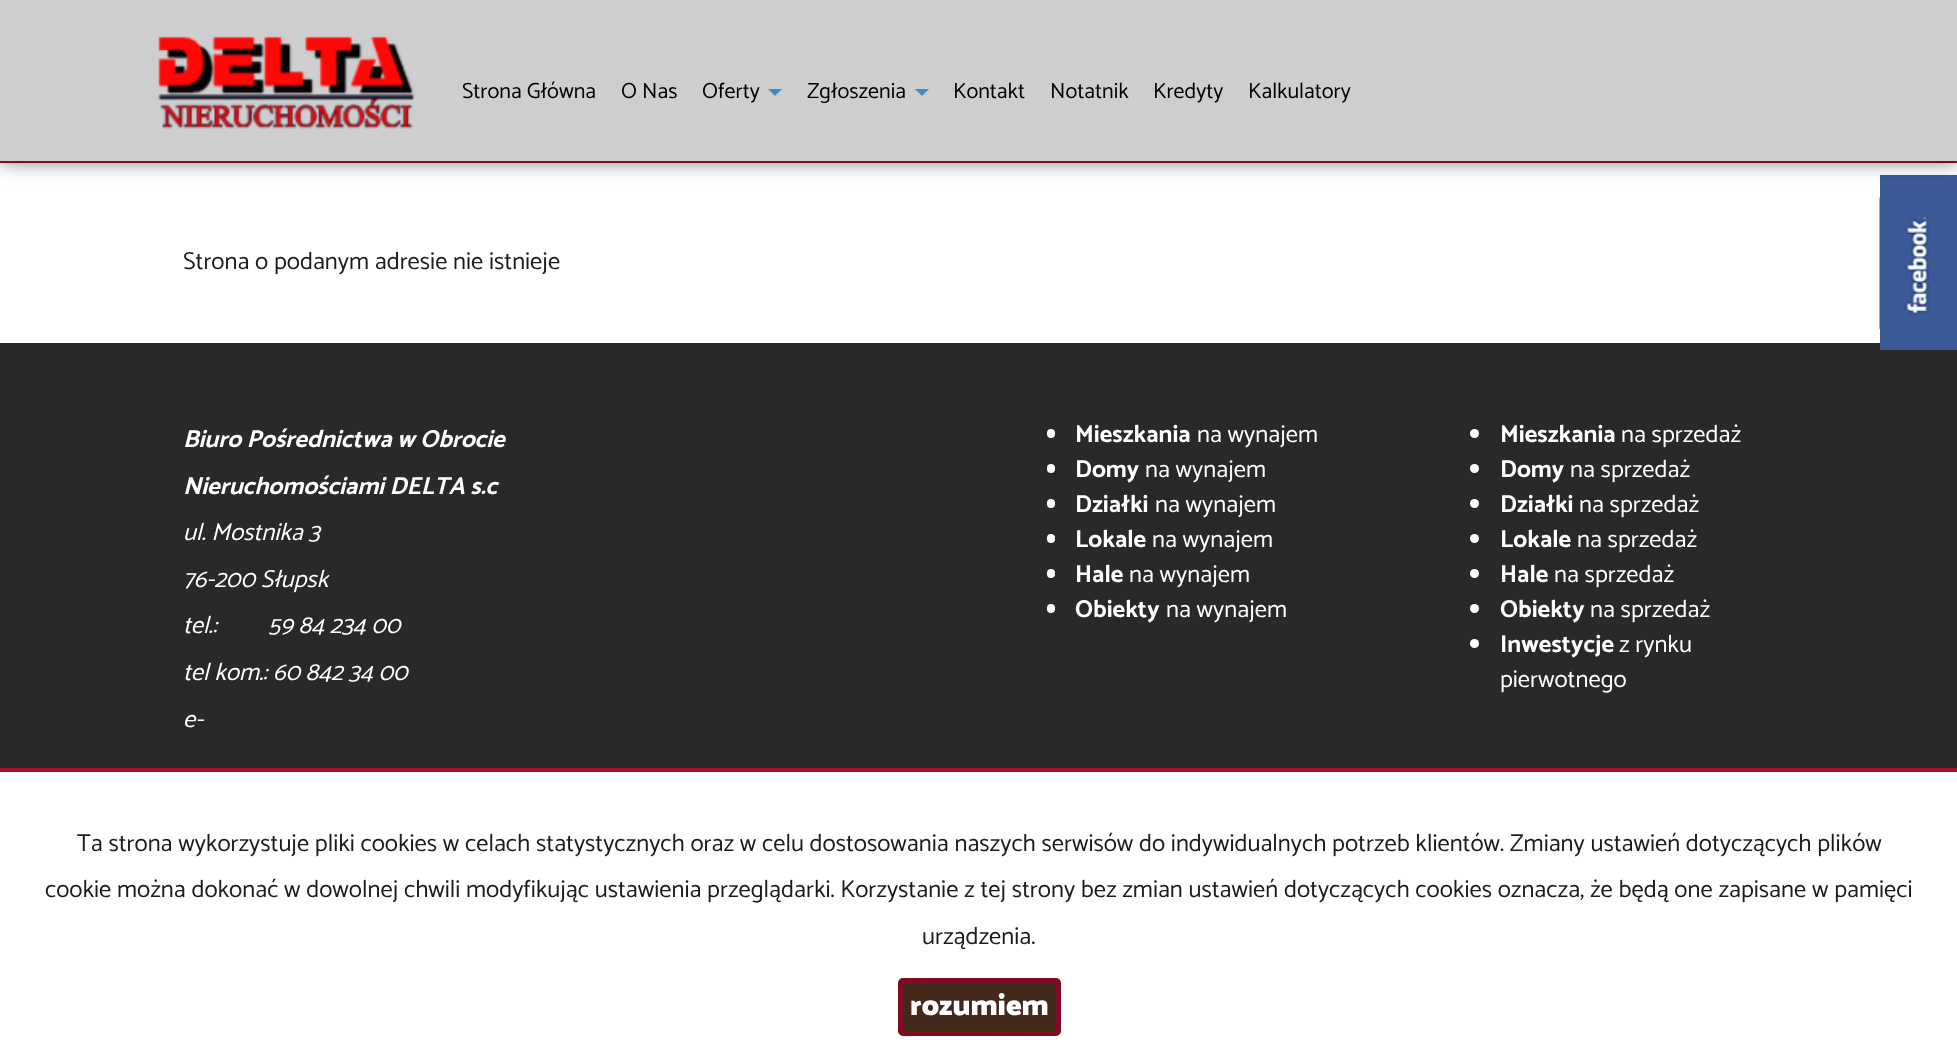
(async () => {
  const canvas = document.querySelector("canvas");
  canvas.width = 1957;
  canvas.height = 1064;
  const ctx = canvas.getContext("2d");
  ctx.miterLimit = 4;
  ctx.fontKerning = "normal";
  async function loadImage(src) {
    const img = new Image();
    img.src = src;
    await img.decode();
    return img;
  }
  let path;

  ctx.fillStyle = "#ffffff";
  ctx.fillRect(0, 0, 1957, 1064);
  ctx.fillStyle = "#292929";
  ctx.fillRect(0, 343, 1957, 425);
  ctx.fillStyle = "#3b5997";
  ctx.fillRect(1880, 175, 77, 175);
  ctx.fillStyle = "rgba(0, 0, 0, 0.46)";
  ctx.filter = "blur(9px)";
  ctx.beginPath();
  ctx.rect(0, 0, 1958, 163);
  ctx.fill();
  ctx.filter = "none";
  ctx.fillStyle = "#cecece";
  ctx.fillRect(0, 0, 1957, 161);
  ctx.fillStyle = "#810a23";
  ctx.fillRect(0, 161, 1957, 2);
  ctx.drawImage(await loadImage("img/1.png"), 158, 36, 257, 93);
  ctx.fillStyle = "#428bca";
  path = new Path2D("M768 89H782L775 96Z");
  ctx.fill(path);
  path = new Path2D("M915 89H929L922 96Z");
  ctx.fill(path);
  ctx.drawImage(await loadImage("img/2.png"), 1879, 197, 50, 132);
  ctx.fillStyle = "#ffffff";
  ctx.beginPath();
  ctx.roundRect(1047, 429, 8, 9, 4);
  ctx.fill();
  ctx.beginPath();
  ctx.roundRect(1047, 464, 8, 9, 4);
  ctx.fill();
  ctx.beginPath();
  ctx.roundRect(1047, 499, 8, 9, 4);
  ctx.fill();
  ctx.beginPath();
  ctx.roundRect(1047, 534, 8, 9, 4);
  ctx.fill();
  ctx.beginPath();
  ctx.roundRect(1047, 569, 8, 9, 4);
  ctx.fill();
  ctx.beginPath();
  ctx.roundRect(1047, 604, 8, 9, 4);
  ctx.fill();
  ctx.beginPath();
  ctx.arc(1474.5, 433.5, 4.5, 0, Math.PI * 2);
  ctx.fill();
  ctx.beginPath();
  ctx.arc(1474.5, 468.5, 4.5, 0, Math.PI * 2);
  ctx.fill();
  ctx.beginPath();
  ctx.arc(1474.5, 503.5, 4.5, 0, Math.PI * 2);
  ctx.fill();
  ctx.beginPath();
  ctx.arc(1474.5, 538.5, 4.5, 0, Math.PI * 2);
  ctx.fill();
  ctx.beginPath();
  ctx.arc(1474.5, 573.5, 4.5, 0, Math.PI * 2);
  ctx.fill();
  ctx.beginPath();
  ctx.arc(1474.5, 608.5, 4.5, 0, Math.PI * 2);
  ctx.fill();
  ctx.beginPath();
  ctx.arc(1474.5, 643.5, 4.5, 0, Math.PI * 2);
  ctx.fill();
  ctx.fillStyle = "#aa0f2b";
  ctx.fillRect(0, 768, 1957, 4);
  ctx.fillStyle = "#42291c";
  ctx.beginPath();
  ctx.roundRect(900.5, 980.5, 158, 53, 2.5);
  ctx.fill();
  ctx.strokeStyle = "#810a23";
  ctx.lineWidth = 5;
  ctx.stroke();
  ctx.font = "22px Catamaran";
  ctx.fillStyle = "#000000";
  for (const [text, x, y] of [
    ["Strona Główna", 462, 98],
    ["O Nas", 621, 98],
    ["Oferty", 702, 98],
    ["Zgłoszenia", 807, 98],
    ["Kontakt", 953, 98],
    ["Notatnik", 1050, 98],
    ["Kredyty", 1153, 98],
    ["Kalkulatory", 1248, 98],
  ]) {
    ctx.fillText(text, x, y);
  }
  ctx.font = "24.5px Catamaran";
  ctx.fillStyle = "#1e1b1b";
  ctx.fillText("Strona o podanym adresie nie istnieje", 183, 269);
  ctx.font = "italic bold 24.5px Catamaran";
  ctx.fillStyle = "#ffffff";
  ctx.fillText("Biuro Pośrednictwa w Obrocie", 183, 447);
  ctx.fillText("Nieruchomościami DELTA s.c", 183, 494);
  ctx.font = "italic 24.5px Catamaran";
  for (const [text, x, y] of [
    ["ul. Mostnika 3", 183, 540],
    ["76-200 Słupsk", 183, 587],
    ["tel.:         59 84 234 00", 183, 633],
    ["tel kom.: 60 842 34 00", 183, 680],
    ["e-", 183, 727],
  ]) {
    ctx.fillText(text, x, y);
  }
  ctx.font = "bold 24.5px Catamaran";
  ctx.fillText("Mieszkania", 1075, 442);
  ctx.font = "24.5px Catamaran";
  ctx.fillText("na wynajem", 1197, 442);
  ctx.font = "bold 24.5px Catamaran";
  ctx.fillText("Domy", 1075, 477);
  ctx.font = "24.5px Catamaran";
  ctx.fillText("na wynajem", 1145, 477);
  ctx.font = "bold 24.5px Catamaran";
  ctx.fillText("Działki", 1075, 512);
  ctx.font = "24.5px Catamaran";
  ctx.fillText("na wynajem", 1155, 512);
  ctx.font = "bold 24.5px Catamaran";
  ctx.fillText("Lokale", 1075, 547);
  ctx.font = "24.5px Catamaran";
  ctx.fillText("na wynajem", 1152, 547);
  ctx.font = "bold 24.5px Catamaran";
  ctx.fillText("Hale", 1075, 582);
  ctx.font = "24.5px Catamaran";
  ctx.fillText("na wynajem", 1129, 582);
  ctx.font = "bold 24.5px Catamaran";
  ctx.fillText("Obiekty", 1075, 617);
  ctx.font = "24.5px Catamaran";
  ctx.fillText("na wynajem", 1166, 617);
  ctx.font = "bold 24.5px Catamaran";
  ctx.fillText("Mieszkania", 1500, 442);
  ctx.font = "24.5px Catamaran";
  ctx.fillText("na sprzedaż", 1621, 442);
  ctx.font = "bold 24.5px Catamaran";
  ctx.fillText("Domy", 1500, 477);
  ctx.font = "24.5px Catamaran";
  ctx.fillText("na sprzedaż", 1570, 477);
  ctx.font = "bold 24.5px Catamaran";
  ctx.fillText("Działki", 1500, 512);
  ctx.font = "24.5px Catamaran";
  ctx.fillText("na sprzedaż", 1579, 512);
  ctx.font = "bold 24.5px Catamaran";
  ctx.fillText("Lokale", 1500, 547);
  ctx.font = "24.5px Catamaran";
  ctx.fillText("na sprzedaż", 1577, 547);
  ctx.font = "bold 24.5px Catamaran";
  ctx.fillText("Hale", 1500, 582);
  ctx.font = "24.5px Catamaran";
  ctx.fillText("na sprzedaż", 1554, 582);
  ctx.font = "bold 24.5px Catamaran";
  ctx.fillText("Obiekty", 1500, 617);
  ctx.font = "24.5px Catamaran";
  ctx.fillText("na sprzedaż", 1590, 617);
  ctx.font = "bold 24.5px Catamaran";
  ctx.fillText("Inwestycje", 1500, 652);
  ctx.font = "24.5px Catamaran";
  ctx.fillText("z rynku", 1619, 652);
  ctx.fillText("pierwotnego", 1500, 687);
  ctx.fillStyle = "#1e1b1b";
  for (const [text, x, y] of [
    ["Ta strona wykorzystuje pliki cookies w celach statystycznych oraz w celu dostosowania naszych serwisów do indywidualnych potrzeb klientów. Zmiany ustawień dotyczących plików", 77, 851],
    ["cookie można dokonać w dowolnej chwili modyfikując ustawienia przeglądarki. Korzystanie z tej strony bez zmian ustawień dotyczących cookies oznacza, że będą one zapisane w pamięci", 45, 897],
    ["urządzenia.", 922, 944],
  ]) {
    ctx.fillText(text, x, y);
  }
  ctx.font = "900 29.5px Catamaran";
  ctx.fillStyle = "#ffffff";
  ctx.fillText("rozumiem", 910, 1015);
})();
